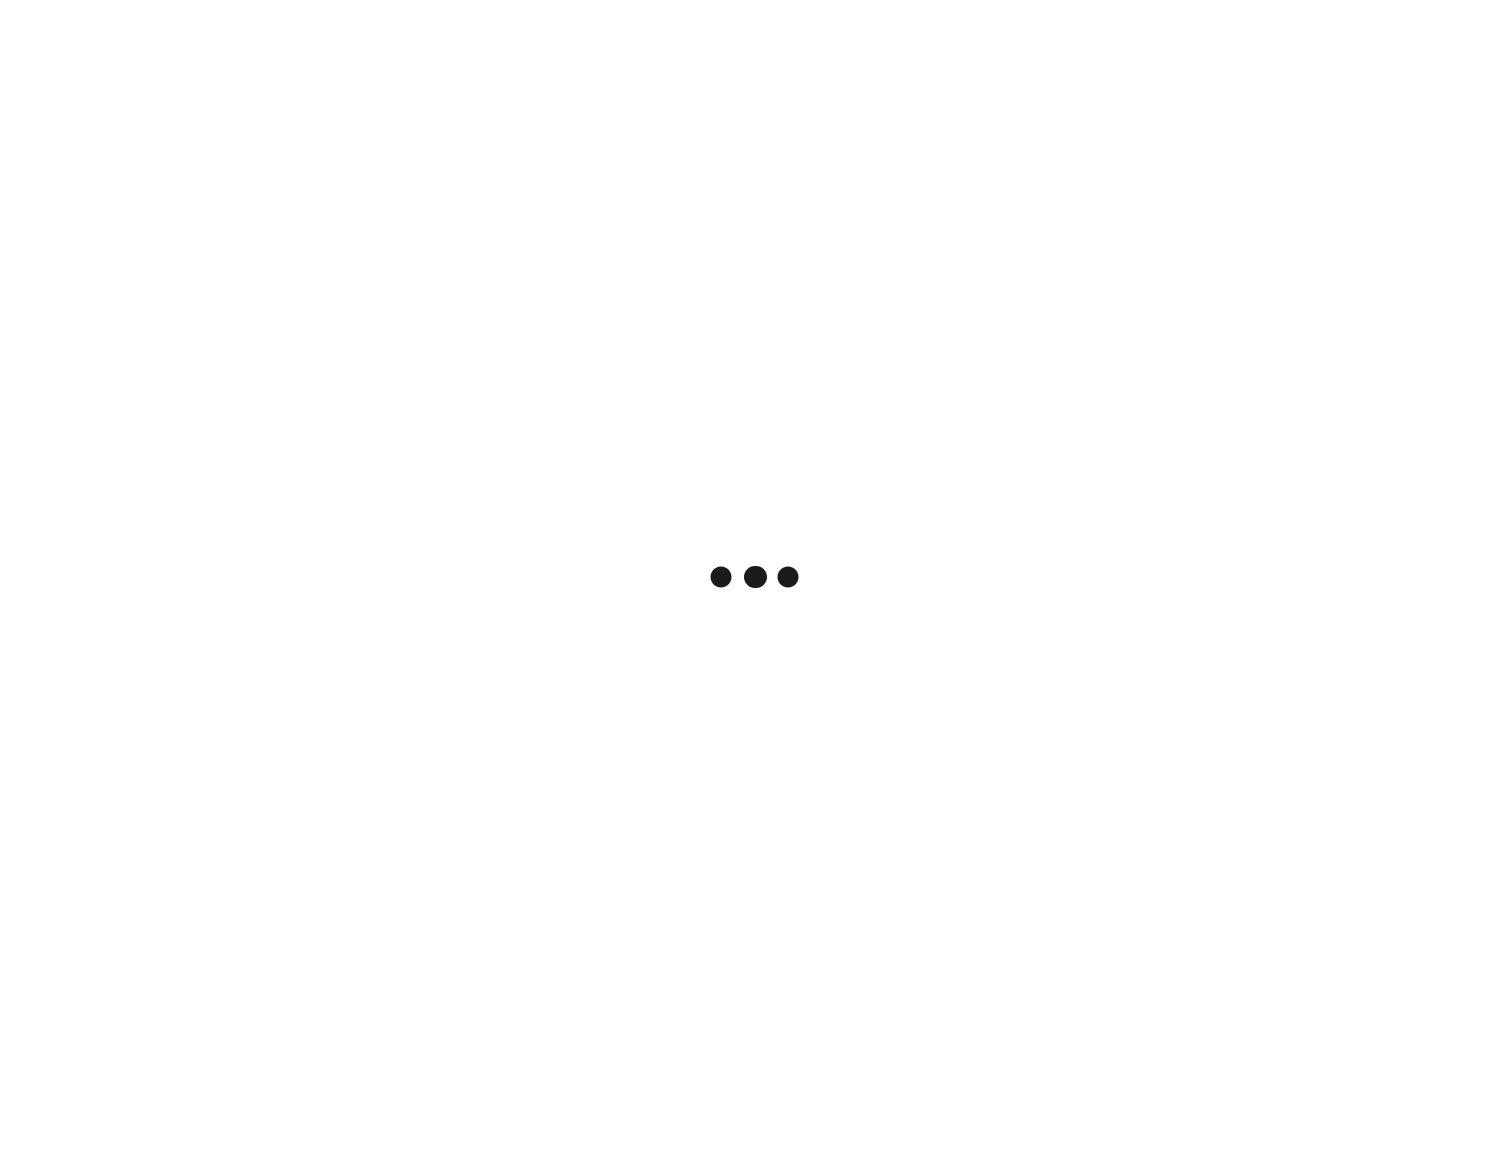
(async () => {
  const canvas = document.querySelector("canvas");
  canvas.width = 1509;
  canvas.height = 1152;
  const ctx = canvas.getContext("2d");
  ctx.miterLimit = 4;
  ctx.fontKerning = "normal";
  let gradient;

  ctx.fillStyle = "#ffffff";
  ctx.fillRect(0, 0, 1509, 1152);
  gradient = ctx.createRadialGradient(788, 577, 0, 788, 577, 11);
  gradient.addColorStop(0.9, "#191b1d");
  gradient.addColorStop(1, "#ffffff");
  ctx.fillStyle = gradient;
  ctx.fillRect(777, 566, 22, 22);
  gradient = ctx.createRadialGradient(721, 577, 0, 721, 577, 11);
  gradient.addColorStop(0.9, "#191b1d");
  gradient.addColorStop(1, "#ffffff");
  ctx.fillStyle = gradient;
  ctx.fillRect(710, 566, 22, 22);
  ctx.fillStyle = "#191b1d";
  ctx.beginPath();
  ctx.roundRect(744, 566, 23, 22, 11);
  ctx.fill();
})();
